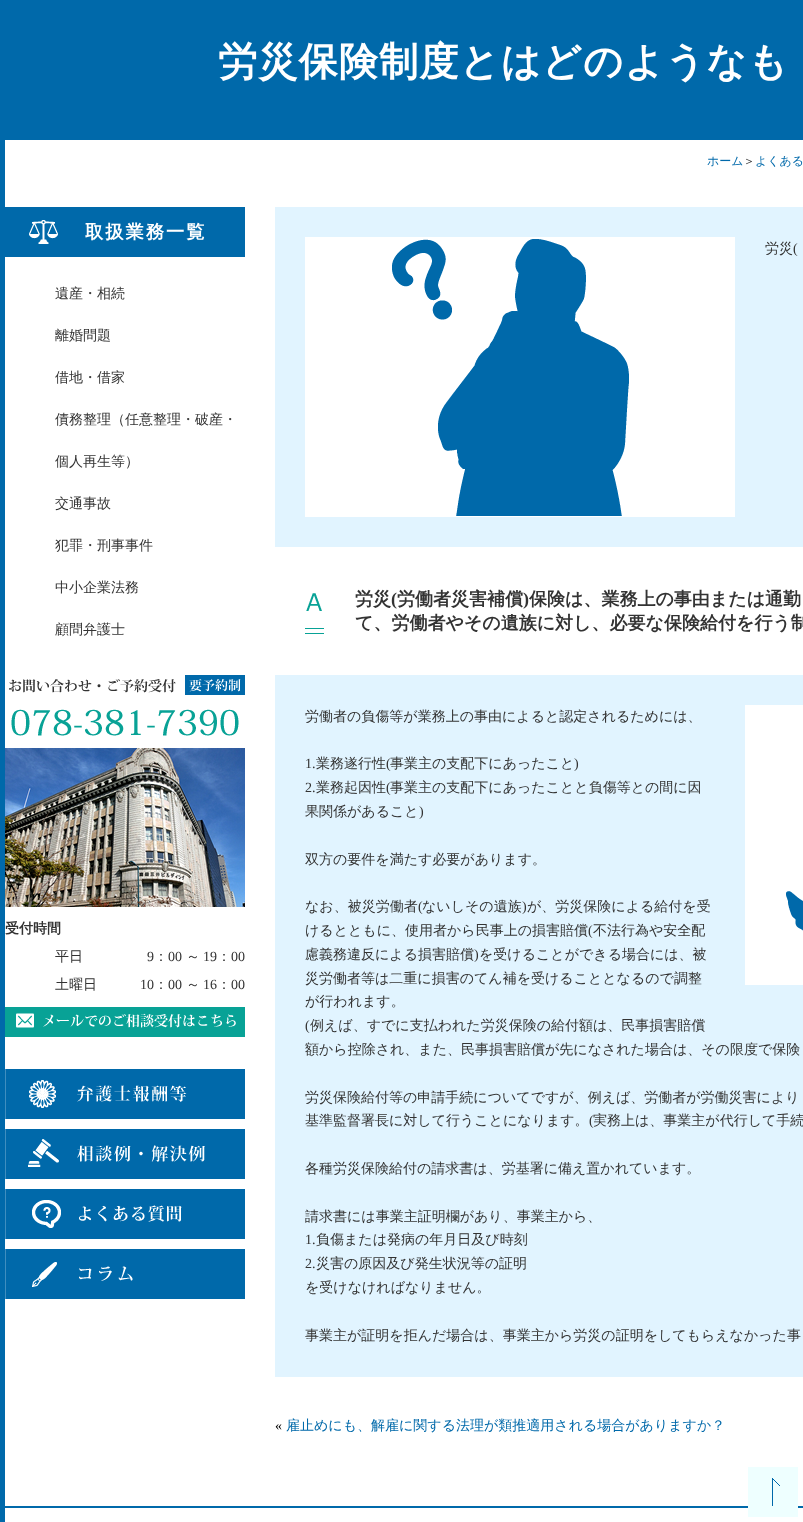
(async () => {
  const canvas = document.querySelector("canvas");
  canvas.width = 803;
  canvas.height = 1522;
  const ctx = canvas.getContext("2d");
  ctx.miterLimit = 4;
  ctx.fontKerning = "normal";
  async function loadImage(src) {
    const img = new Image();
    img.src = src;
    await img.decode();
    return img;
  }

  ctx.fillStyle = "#ffffff";
  ctx.fillRect(0, 0, 803, 1522);
  ctx.strokeStyle = "#0069aa";
  ctx.lineWidth = 5;
  ctx.strokeRect(2.5, -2.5, 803, 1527);
  ctx.fillStyle = "#0069aa";
  ctx.fillRect(5, 0, 798, 140);
  ctx.drawImage(await loadImage("img/1.png"), 5, 207, 240, 50);
  ctx.drawImage(await loadImage("img/2.png"), 9, 675, 236, 61);
  ctx.drawImage(await loadImage("img/3.png"), 5, 748, 240, 159);
  ctx.drawImage(await loadImage("img/4.png"), 5, 1007, 240, 30);
  ctx.drawImage(await loadImage("img/5.png"), 5, 1069, 240, 50);
  ctx.drawImage(await loadImage("img/6.png"), 5, 1129, 240, 50);
  ctx.drawImage(await loadImage("img/7.png"), 5, 1189, 240, 50);
  ctx.drawImage(await loadImage("img/8.png"), 5, 1249, 240, 50);
  ctx.fillStyle = "#e1f4ff";
  ctx.fillRect(275, 207, 528, 340);
  ctx.drawImage(await loadImage("img/9.png"), 305, 237, 430, 280);
  ctx.drawImage(await loadImage("img/10.png"), 305, 593, 19, 41);
  ctx.fillRect(275, 675, 528, 702);
  ctx.drawImage(await loadImage("img/11.png"), 745, 705, 58, 280);
  ctx.fillStyle = "#0069aa";
  ctx.fillRect(5, 1506, 798, 2);
  ctx.drawImage(await loadImage("img/12.png"), 748, 1467, 50, 50);
  ctx.letterSpacing = "1px";
  ctx.font = "bold 39.25px WenQuanYi Zen Hei";
  ctx.fillStyle = "#ffffff";
  ctx.fillText("労災保険制度とはどのようなも", 218, 75);
  ctx.letterSpacing = "0px";
  ctx.font = "500 12px WenQuanYi Zen Hei";
  ctx.fillStyle = "#0069aa";
  ctx.fillText("ホーム", 707, 165);
  ctx.fillStyle = "#333333";
  ctx.fillText("＞", 743, 165);
  ctx.fillStyle = "#0069aa";
  ctx.fillText("よくある", 755, 165);
  ctx.letterSpacing = "2px";
  ctx.font = "bold 18.25px WenQuanYi Zen Hei";
  ctx.fillStyle = "#ffffff";
  ctx.fillText("取扱業務一覧", 85, 238);
  ctx.letterSpacing = "0px";
  ctx.font = "500 14px WenQuanYi Zen Hei";
  ctx.fillStyle = "#333333";
  for (const [text, x, y] of [
    ["遺産・相続", 55, 298],
    ["離婚問題", 55, 340],
    ["借地・借家", 55, 382],
    ["債務整理（任意整理・破産・", 55, 424],
    ["個人再生等）", 55, 466],
    ["交通事故", 55, 508],
    ["犯罪・刑事事件", 55, 550],
    ["中小企業法務", 55, 592],
    ["顧問弁護士", 55, 634],
  ]) {
    ctx.fillText(text, x, y);
  }
  ctx.font = "bold 14px WenQuanYi Zen Hei";
  ctx.fillText("受付時間", 5, 933);
  ctx.font = "500 14px WenQuanYi Zen Hei";
  ctx.fillText("平日", 55, 961);
  ctx.font = "14px Liberation Serif";
  ctx.fillText("9", 147, 961);
  ctx.font = "500 14px WenQuanYi Zen Hei";
  ctx.fillText("：", 154, 961);
  ctx.font = "14px Liberation Serif";
  ctx.fillText("00", 168, 961);
  ctx.font = "500 14px WenQuanYi Zen Hei";
  ctx.fillText("～", 186, 961);
  ctx.font = "14px Liberation Serif";
  ctx.fillText("19", 203, 961);
  ctx.font = "500 14px WenQuanYi Zen Hei";
  ctx.fillText("：", 217, 961);
  ctx.font = "14px Liberation Serif";
  ctx.fillText("00", 231, 961);
  ctx.font = "500 14px WenQuanYi Zen Hei";
  ctx.fillText("土曜日", 55, 989);
  ctx.font = "14px Liberation Serif";
  ctx.fillText("10", 140, 989);
  ctx.font = "500 14px WenQuanYi Zen Hei";
  ctx.fillText("：", 154, 989);
  ctx.font = "14px Liberation Serif";
  ctx.fillText("00", 168, 989);
  ctx.font = "500 14px WenQuanYi Zen Hei";
  ctx.fillText("～", 186, 989);
  ctx.font = "14px Liberation Serif";
  ctx.fillText("16", 203, 989);
  ctx.font = "500 14px WenQuanYi Zen Hei";
  ctx.fillText("：", 217, 989);
  ctx.font = "14px Liberation Serif";
  ctx.fillText("00", 231, 989);
  ctx.font = "500 14px WenQuanYi Zen Hei";
  ctx.fillText("労災", 765, 253);
  ctx.font = "14px Liberation Serif";
  ctx.fillText("(", 793, 253);
  ctx.font = "bold 18px WenQuanYi Zen Hei";
  ctx.fillText("労災", 355, 605);
  ctx.font = "bold 18px Liberation Serif";
  ctx.fillText("(", 391, 605);
  ctx.font = "bold 18px WenQuanYi Zen Hei";
  ctx.fillText("労働者災害補償", 397, 605);
  ctx.font = "bold 18px Liberation Serif";
  ctx.fillText(")", 523, 605);
  ctx.font = "bold 18px WenQuanYi Zen Hei";
  ctx.fillText("保険は、業務上の事由または通勤", 529, 605);
  ctx.fillText("て、労働者やその遺族に対し、必要な保険給付を行う制", 355, 629);
  ctx.font = "500 14px WenQuanYi Zen Hei";
  ctx.fillText("労働者の負傷等が業務上の事由によると認定されるためには、", 305, 721);
  ctx.font = "14px Liberation Serif";
  ctx.fillText("1.", 305, 768);
  ctx.font = "500 14px WenQuanYi Zen Hei";
  ctx.fillText("業務遂行性", 316, 768);
  ctx.font = "14px Liberation Serif";
  ctx.fillText("(", 386, 768);
  ctx.font = "500 14px WenQuanYi Zen Hei";
  ctx.fillText("事業主の支配下にあったこと", 390, 768);
  ctx.font = "14px Liberation Serif";
  ctx.fillText(")", 574, 768);
  ctx.fillText("2.", 305, 792);
  ctx.font = "500 14px WenQuanYi Zen Hei";
  ctx.fillText("業務起因性", 316, 792);
  ctx.font = "14px Liberation Serif";
  ctx.fillText("(", 386, 792);
  ctx.font = "500 14px WenQuanYi Zen Hei";
  ctx.fillText("事業主の支配下にあったことと負傷等との間に因", 390, 792);
  ctx.fillText("果関係があること", 305, 816);
  ctx.font = "14px Liberation Serif";
  ctx.fillText(")", 419, 816);
  ctx.font = "500 14px WenQuanYi Zen Hei";
  ctx.fillText("双方の要件を満たす必要があります。", 305, 864);
  ctx.fillText("なお、被災労働者", 305, 911);
  ctx.font = "14px Liberation Serif";
  ctx.fillText("(", 418, 911);
  ctx.font = "500 14px WenQuanYi Zen Hei";
  ctx.fillText("ないしその遺族", 422, 911);
  ctx.font = "14px Liberation Serif";
  ctx.fillText(")", 522, 911);
  ctx.font = "500 14px WenQuanYi Zen Hei";
  ctx.fillText("が、労災保険による給付を受", 527, 911);
  ctx.fillText("けるとともに、使用者から民事上の損害賠償", 305, 935);
  ctx.font = "14px Liberation Serif";
  ctx.fillText("(", 588, 935);
  ctx.font = "500 14px WenQuanYi Zen Hei";
  ctx.fillText("不法行為や安全配", 593, 935);
  ctx.fillText("慮義務違反による損害賠償", 305, 959);
  ctx.font = "14px Liberation Serif";
  ctx.fillText(")", 474, 959);
  ctx.font = "500 14px WenQuanYi Zen Hei";
  for (const [text, x, y] of [
    ["を受けることができる場合には、被", 479, 959],
    ["災労働者等は二重に損害のてん補を受けることとなるので調整", 305, 983],
    ["が行われます。", 305, 1006],
  ]) {
    ctx.fillText(text, x, y);
  }
  ctx.font = "14px Liberation Serif";
  ctx.fillText("(", 305, 1030);
  ctx.font = "500 14px WenQuanYi Zen Hei";
  for (const [text, x, y] of [
    ["例えば、すでに支払われた労災保険の給付額は、民事損害賠償", 310, 1030],
    ["額から控除され、また、民事損害賠償が先になされた場合は、その限度で保険", 305, 1054],
    ["労災保険給付等の申請手続についてですが、例えば、労働者が労働災害により", 305, 1102],
    ["基準監督署長に対して行うことになります。", 305, 1125],
  ]) {
    ctx.fillText(text, x, y);
  }
  ctx.font = "14px Liberation Serif";
  ctx.fillText("(", 589, 1125);
  ctx.font = "500 14px WenQuanYi Zen Hei";
  for (const [text, x, y] of [
    ["実務上は、事業主が代行して手続", 593, 1125],
    ["各種労災保険給付の請求書は、労基署に備え置かれています。", 305, 1173],
    ["請求書には事業主証明欄があり、事業主から、", 305, 1221],
  ]) {
    ctx.fillText(text, x, y);
  }
  ctx.font = "14px Liberation Serif";
  ctx.fillText("1.", 305, 1244);
  ctx.font = "500 14px WenQuanYi Zen Hei";
  ctx.fillText("負傷または発病の年月日及び時刻", 316, 1244);
  ctx.font = "14px Liberation Serif";
  ctx.fillText("2.", 305, 1268);
  ctx.font = "500 14px WenQuanYi Zen Hei";
  for (const [text, x, y] of [
    ["災害の原因及び発生状況等の証明", 316, 1268],
    ["を受けなければなりません。", 305, 1292],
    ["事業主が証明を拒んだ場合は、事業主から労災の証明をしてもらえなかった事", 305, 1340],
  ]) {
    ctx.fillText(text, x, y);
  }
  ctx.font = "14px Liberation Serif";
  ctx.fillStyle = "#000000";
  ctx.fillText("«", 275, 1430);
  ctx.font = "500 14px WenQuanYi Zen Hei";
  ctx.fillStyle = "#0069aa";
  ctx.fillText("雇止めにも、解雇に関する法理が類推適用される場合がありますか？", 286, 1430);
})();
